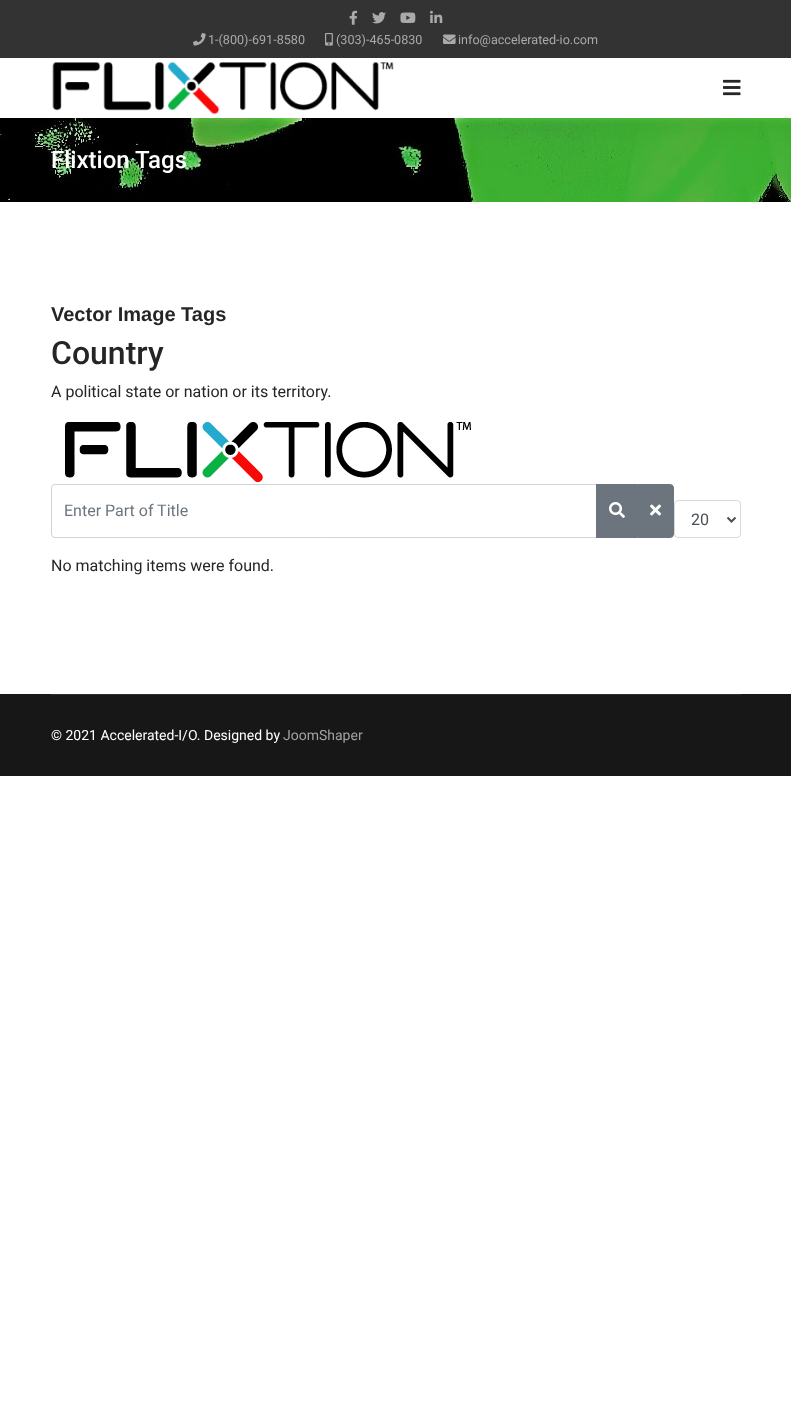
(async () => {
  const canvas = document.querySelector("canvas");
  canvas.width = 791;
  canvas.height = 1416;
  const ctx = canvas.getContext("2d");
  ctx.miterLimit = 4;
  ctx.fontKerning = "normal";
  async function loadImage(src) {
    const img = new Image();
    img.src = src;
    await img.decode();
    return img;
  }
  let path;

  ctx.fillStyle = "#ffffff";
  ctx.fillRect(0, 0, 791, 1416);
  ctx.fillStyle = "#333333";
  ctx.fillRect(0, 0, 791, 58);
  ctx.drawImage(await loadImage("img/1.png"), 349, 10, 9, 15);
  ctx.drawImage(await loadImage("img/2.png"), 372, 12, 14, 12);
  ctx.drawImage(await loadImage("img/3.png"), 400, 12, 16, 11);
  ctx.drawImage(await loadImage("img/4.png"), 430, 10, 13, 13);
  ctx.drawImage(await loadImage("img/5.png"), 193, 33, 13, 13);
  ctx.drawImage(await loadImage("img/6.png"), 325, 33, 8, 13);
  ctx.drawImage(await loadImage("img/7.png"), 443, 34, 13, 10);
  ctx.drawImage(await loadImage("img/8.png"), 52, 62, 342, 53);
  ctx.drawImage(await loadImage("img/9.png"), 723, 79, 18, 17);
  ctx.drawImage(await loadImage("img/10.png"), 0, 118, 791, 84);
  ctx.drawImage(await loadImage("img/11.png"), 65, 422, 406, 60);
  ctx.beginPath();
  ctx.roundRect(51.5, 484.5, 545, 53, [3.5, 0, 0, 3.5]);
  ctx.strokeStyle = "#ced4da";
  ctx.stroke();
  ctx.fillStyle = "#6c757d";
  ctx.fillRect(596, 484, 41, 54);
  ctx.drawImage(await loadImage("img/12.png"), 609, 502, 16, 16);
  ctx.beginPath();
  ctx.roundRect(637.5, 484.5, 36, 53, [0, 3.5, 3.5, 0]);
  ctx.fill();
  ctx.strokeStyle = "#6c757d";
  ctx.stroke();
  ctx.drawImage(await loadImage("img/13.png"), 650, 504, 11, 12);
  ctx.beginPath();
  ctx.roundRect(674.5, 500.5, 66, 37, 3.5);
  ctx.strokeStyle = "#d9d9d9";
  ctx.stroke();
  path = new Path2D("M727.5 517.5L731.5 521.5L735.5 517.5");
  ctx.strokeStyle = "#495057";
  ctx.lineWidth = 2;
  ctx.stroke(path);
  ctx.fillStyle = "#171717";
  ctx.fillRect(0, 694, 791, 82);
  ctx.fillStyle = "#2e2e2e";
  ctx.fillRect(51, 694, 690, 1);
  ctx.font = "12.6px Roboto";
  ctx.fillStyle = "#aaaaaa";
  for (const [text, x, y] of [
    ["1-(800)-691-8580", 208, 44],
    ["(303)-465-0830", 336, 44],
    ["info@accelerated-io.com", 458, 44],
  ]) {
    ctx.fillText(text, x, y);
  }
  ctx.font = "500 24px Roboto";
  ctx.fillStyle = "#ffffff";
  ctx.fillText("Flixtion Tags", 51, 168);
  ctx.font = "bold 20px Liberation Sans";
  ctx.fillStyle = "#252525";
  ctx.fillText("Vector Image Tags", 51, 321);
  ctx.font = "500 32px Roboto";
  ctx.fillText("Country", 51, 364);
  ctx.font = "16px Roboto";
  ctx.fillText("A political state or nation or its territory.", 51, 397);
  ctx.fillStyle = "#6c757d";
  ctx.fillText("Enter Part of Title", 64, 516);
  ctx.fillStyle = "#495057";
  ctx.fillText("20", 691, 525);
  ctx.fillStyle = "#252525";
  ctx.fillText("No matching items were found.", 51, 571);
  ctx.font = "14px Roboto";
  ctx.fillStyle = "#ffffff";
  ctx.fillText("© 2021 Accelerated-I/O. Designed by", 51, 740);
  ctx.fillStyle = "#a2a2a2";
  ctx.fillText("JoomShaper", 283, 740);
})();
